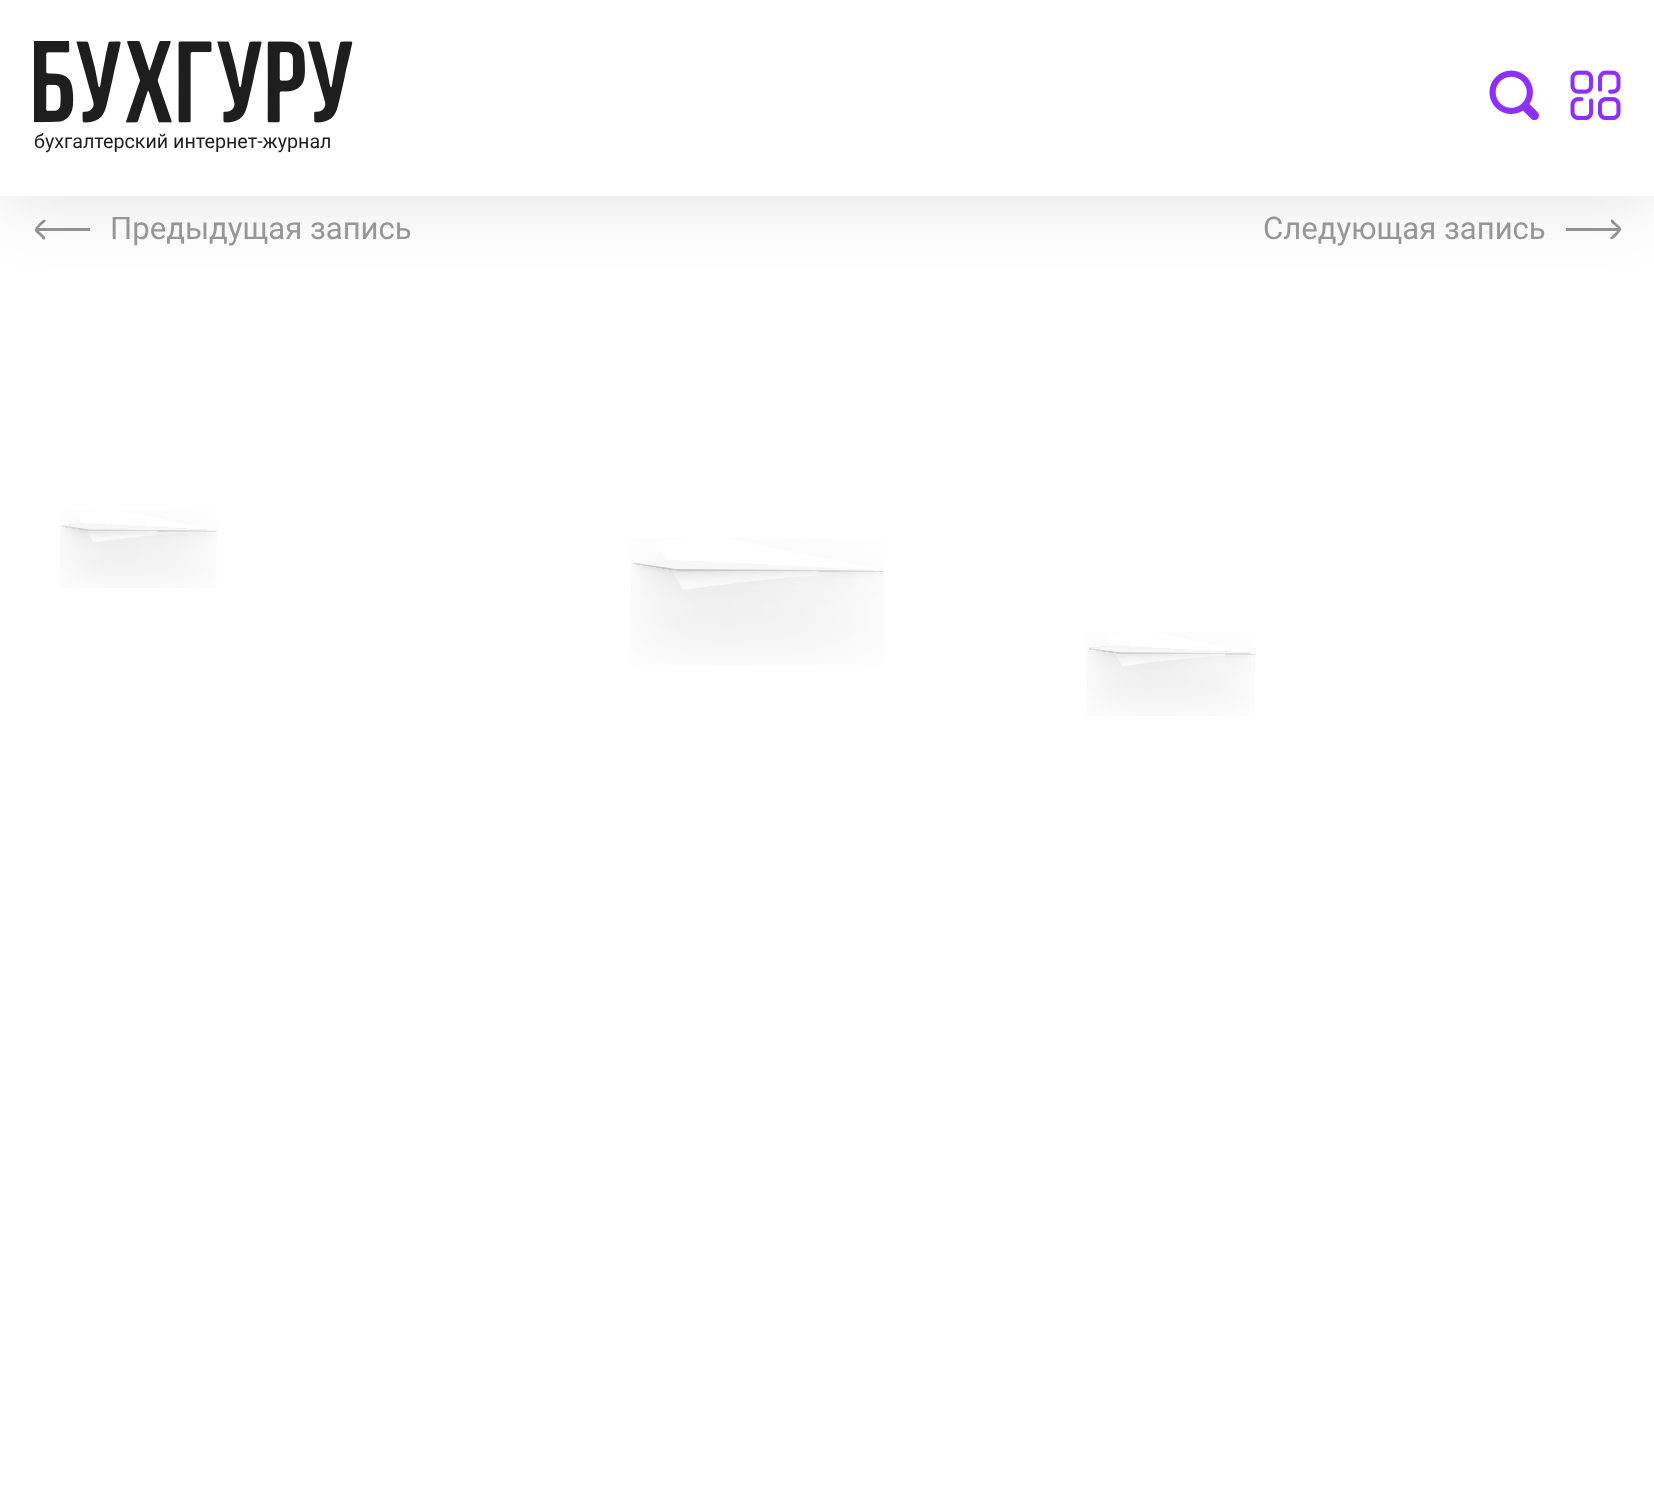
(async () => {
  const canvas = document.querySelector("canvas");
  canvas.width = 1654;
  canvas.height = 1500;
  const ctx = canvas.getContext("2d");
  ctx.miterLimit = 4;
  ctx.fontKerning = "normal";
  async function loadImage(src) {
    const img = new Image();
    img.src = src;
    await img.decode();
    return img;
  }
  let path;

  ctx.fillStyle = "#ffffff";
  ctx.fillRect(0, 0, 1654, 1500);
  ctx.fillStyle = "#969696";
  path = new Path2D("M35 229C33 230 38 234 39 235C40 235 44 242 45 239C46 237 43 235 43 235L37 229L46 221L45 220C43 218 36 227 35 229ZM90 228H36V231H90Z");
  ctx.fill(path);
  path = new Path2D("M1621 230C1623 229 1618 225 1617 224C1616 224 1612 217 1611 220C1610 222 1613 224 1613 224L1619 229L1610 238L1611 239C1613 241 1620 232 1621 230ZM1566 231H1620V228H1566Z");
  ctx.fill(path);
  ctx.fillStyle = "rgba(0, 0, 0, 0.1)";
  ctx.filter = "blur(34px)";
  ctx.beginPath();
  ctx.rect(0, 9, 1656, 196);
  ctx.fill();
  ctx.filter = "none";
  ctx.fillStyle = "#ffffff";
  ctx.fillRect(0, 0, 1654, 196);
  ctx.drawImage(await loadImage("img/1.png"), 1489, 70, 50, 51);
  ctx.drawImage(await loadImage("img/2.png"), 1570, 70, 51, 51);
  ctx.drawImage(await loadImage("img/3.png"), 34, 41, 319, 82);
  ctx.drawImage(await loadImage("img/4.png"), 60, 510, 157, 78);
  ctx.drawImage(await loadImage("img/5.png"), 630, 538, 254, 127);
  ctx.drawImage(await loadImage("img/6.png"), 1086, 632, 169, 84);
  ctx.font = "19.7px Roboto";
  ctx.fillStyle = "#1e1e1e";
  ctx.fillText("бухгалтерский интернет-журнал", 34, 148);
  ctx.font = "31.1px Roboto";
  ctx.fillStyle = "#969696";
  ctx.fillText("Предыдущая запись", 110, 239);
  ctx.fillText("Следующая запись", 1263, 239);
})();
